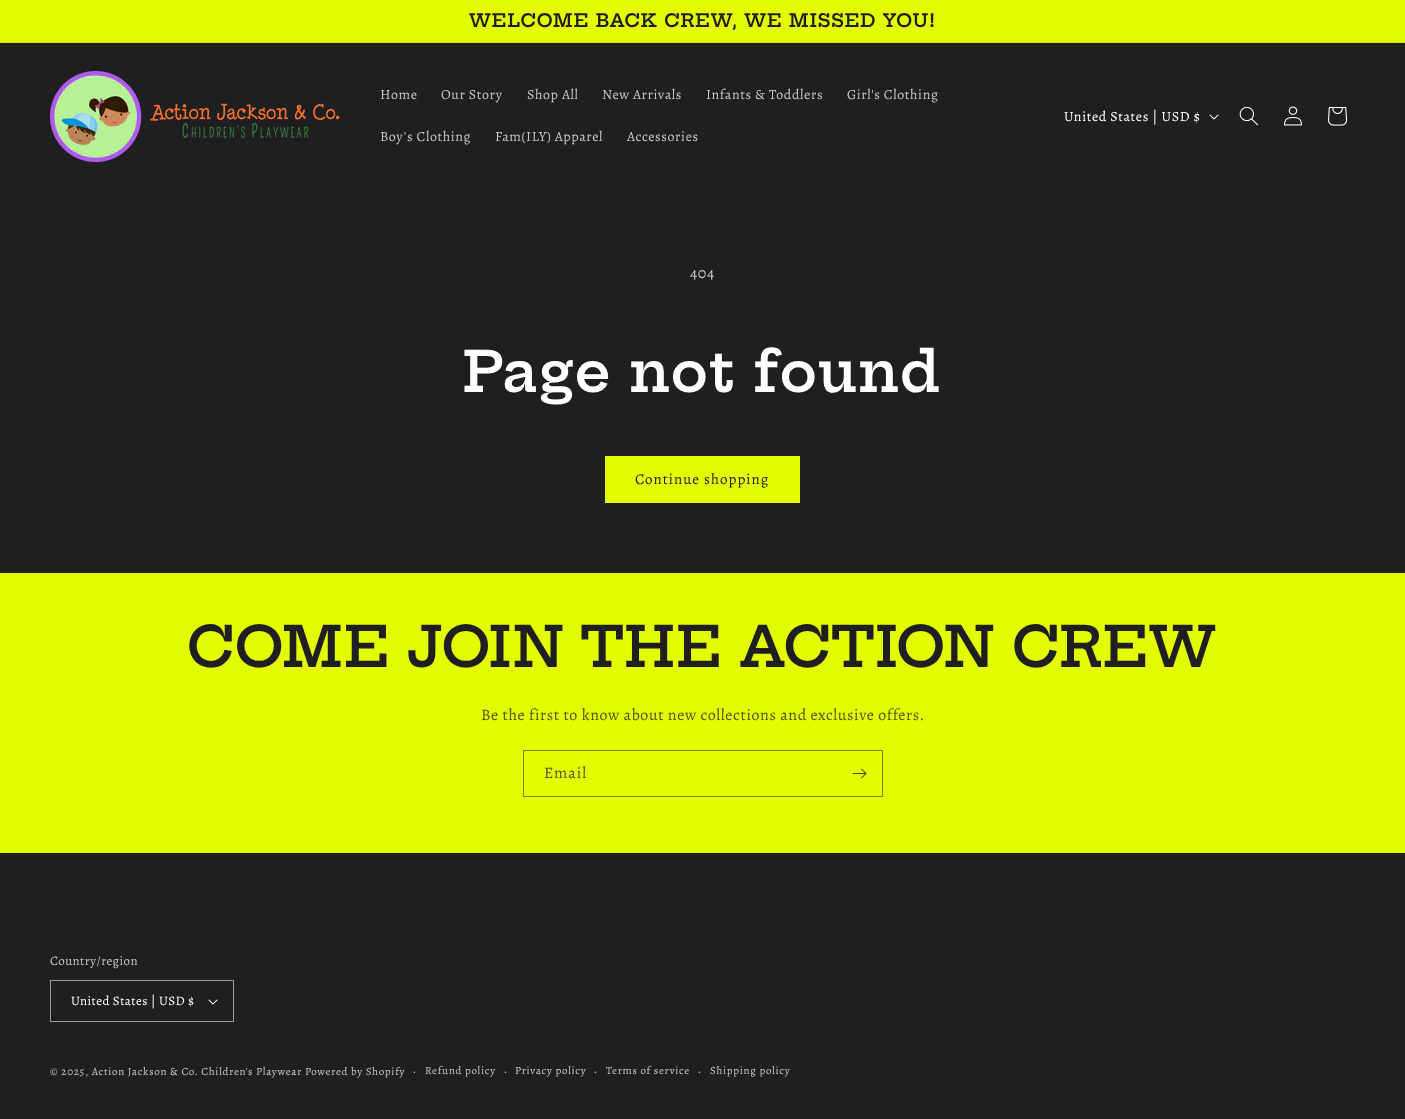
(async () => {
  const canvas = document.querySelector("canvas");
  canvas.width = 1405;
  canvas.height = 1119;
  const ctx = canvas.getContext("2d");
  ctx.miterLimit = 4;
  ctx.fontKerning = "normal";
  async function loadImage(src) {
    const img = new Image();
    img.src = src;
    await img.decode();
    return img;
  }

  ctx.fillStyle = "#1f1f21";
  ctx.fillRect(0, 0, 1405, 1119);
  ctx.fillStyle = "#e3fc02";
  ctx.fillRect(0, 0, 1405, 42);
  ctx.fillStyle = "#d3ea04";
  ctx.fillRect(0, 42, 1405, 1);
  ctx.drawImage(await loadImage("img/1.png"), 50, 71, 290, 91);
  ctx.drawImage(await loadImage("img/2.png"), 1209, 114, 10, 6);
  ctx.drawImage(await loadImage("img/3.png"), 1239, 106, 19, 20);
  ctx.drawImage(await loadImage("img/4.png"), 1284, 106, 18, 20);
  ctx.drawImage(await loadImage("img/5.png"), 1328, 107, 20, 19);
  ctx.fillStyle = "#e3fc02";
  ctx.fillRect(605, 456, 195, 47);
  ctx.fillRect(0, 573, 1405, 280);
  ctx.strokeStyle = "#778213";
  ctx.strokeRect(523.5, 750.5, 359, 46);
  ctx.drawImage(await loadImage("img/6.png"), 852, 768, 15, 11);
  ctx.drawImage(await loadImage("img/2.png"), 208, 999, 10, 6);
  ctx.strokeStyle = "#9a9a9b";
  ctx.strokeRect(50.5, 980.5, 183, 41);
  ctx.letterSpacing = "1px";
  ctx.font = "600 18.2px Hepta Slab";
  ctx.fillStyle = "#1f1f21";
  ctx.fillText("WELCOME BACK CREW, WE MISSED YOU!", 469, 27);
  ctx.letterSpacing = "0.6px";
  ctx.font = "14px Alegreya";
  ctx.fillStyle = "#c7c7c8";
  for (const [text, x, y] of [
    ["Home", 380, 99],
    ["Our Story", 441, 99],
    ["Shop All", 527, 99],
    ["New Arrivals", 602, 99],
    ["Infants & Toddlers", 706, 99],
    ["Girl's Clothing", 847, 99],
    ["Boy's Clothing", 380, 141],
    ["Fam(ILY) Apparel", 495, 141],
    ["Accessories", 627, 141],
  ]) {
    ctx.fillText(text, x, y);
  }
  ctx.fillStyle = "#ffffff";
  ctx.fillText("United States | USD $", 1064, 121);
  ctx.font = "16px Alegreya";
  ctx.fillStyle = "#c7c7c8";
  ctx.fillText("404", 690, 278);
  ctx.letterSpacing = "0.8px";
  ctx.font = "600 56px Hepta Slab";
  ctx.fillStyle = "#ffffff";
  ctx.fillText("Page not found", 463, 392);
  ctx.letterSpacing = "1px";
  ctx.font = "15px Alegreya";
  ctx.fillStyle = "#1f1f21";
  ctx.fillText("Continue shopping", 635, 484);
  ctx.letterSpacing = "0.8px";
  ctx.font = "600 56px Hepta Slab";
  ctx.fillText("COME JOIN THE ACTION CREW", 187, 667);
  ctx.letterSpacing = "0.6px";
  ctx.font = "16px Alegreya";
  ctx.fillStyle = "#505619";
  ctx.fillText("Be the first to know about new collections and exclusive offers.", 481, 720);
  ctx.letterSpacing = "1px";
  ctx.fillText("Email", 544, 778);
  ctx.letterSpacing = "0.4px";
  ctx.font = "13px Alegreya";
  ctx.fillStyle = "#c7c7c8";
  ctx.fillText("Country/region", 50, 965);
  ctx.fillStyle = "#ffffff";
  ctx.fillText("United States | USD $", 71, 1005);
  ctx.letterSpacing = "0.7px";
  ctx.font = "11px Alegreya";
  ctx.fillStyle = "#c7c7c8";
  ctx.fillText("© 2025, Action Jackson & Co. Children's Playwear Powered by Shopify", 50, 1075);
  ctx.font = "12px Alegreya";
  ctx.fillText("·", 413, 1075);
  ctx.font = "11px Alegreya";
  ctx.fillText("Refund policy", 425, 1074);
  ctx.font = "12px Alegreya";
  ctx.fillText("·", 504, 1075);
  ctx.font = "11px Alegreya";
  ctx.fillText("Privacy policy", 515, 1074);
  ctx.font = "12px Alegreya";
  ctx.fillText("·", 594, 1075);
  ctx.font = "11px Alegreya";
  ctx.fillText("Terms of service", 606, 1074);
  ctx.font = "12px Alegreya";
  ctx.fillText("·", 698, 1075);
  ctx.font = "11px Alegreya";
  ctx.fillText("Shipping policy", 710, 1074);
})();
